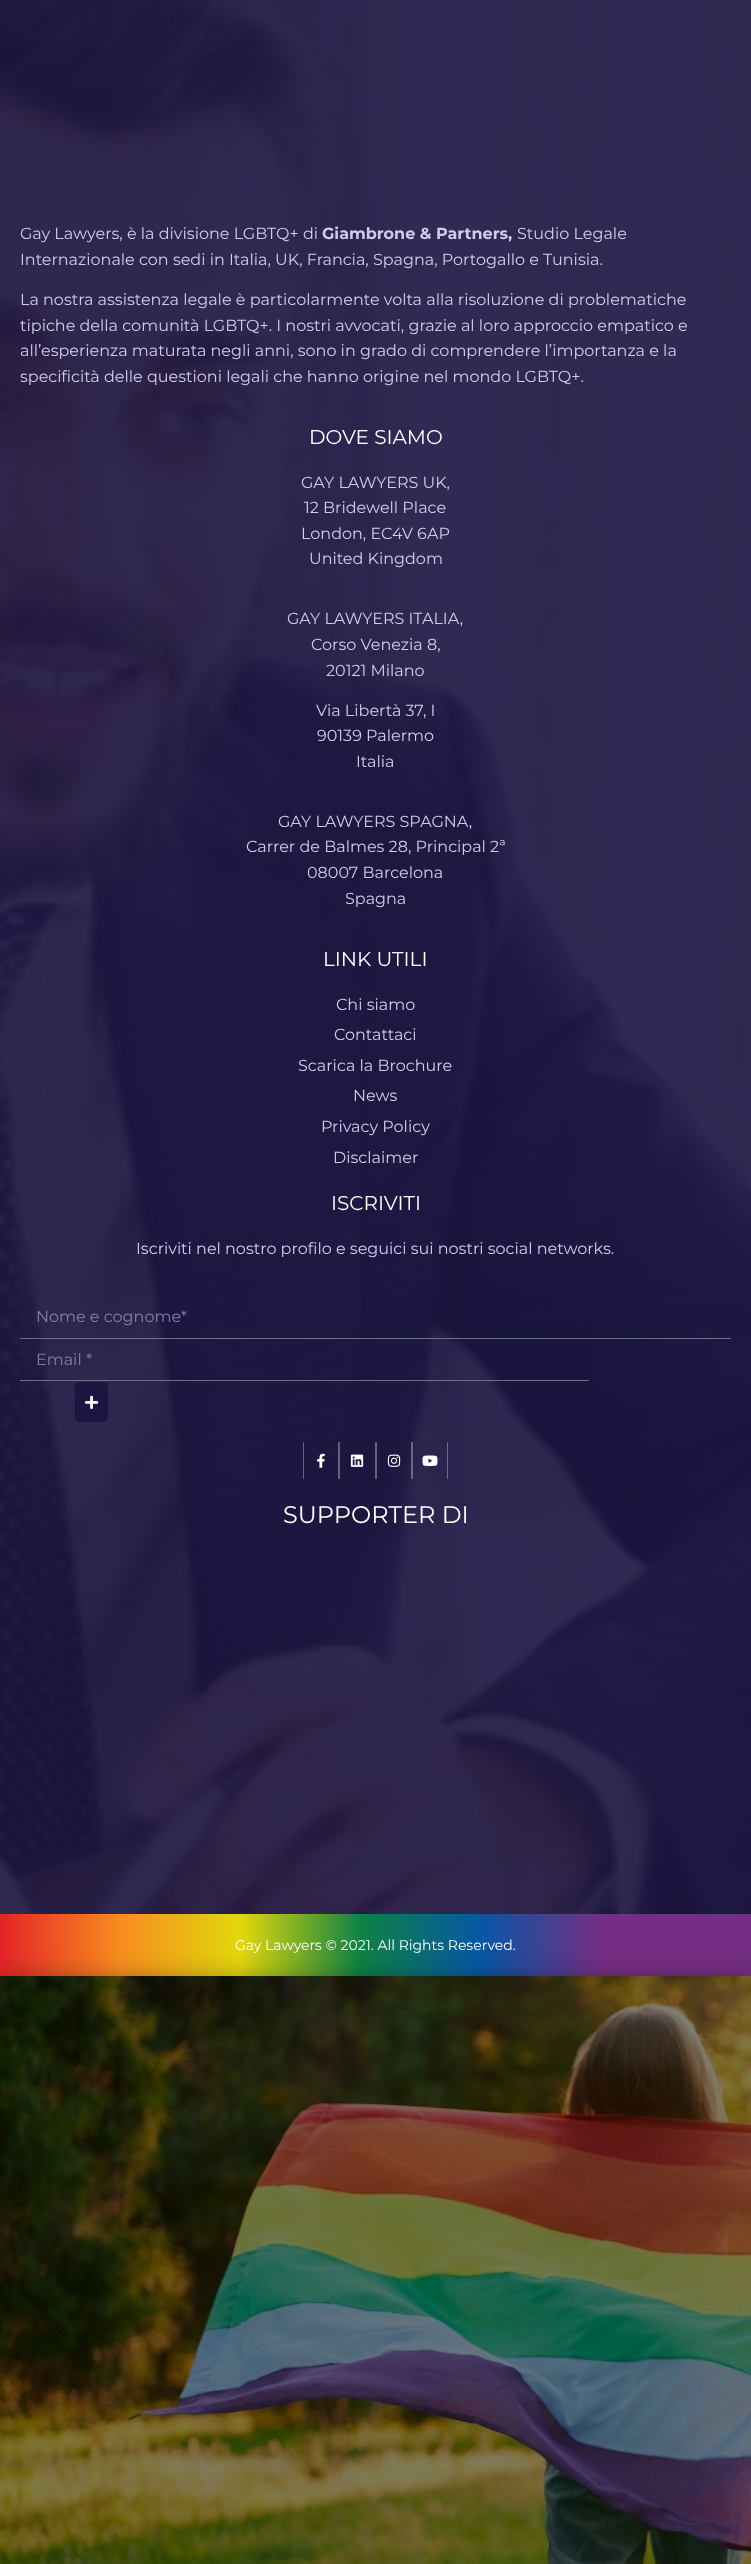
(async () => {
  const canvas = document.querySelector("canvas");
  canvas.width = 751;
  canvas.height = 2564;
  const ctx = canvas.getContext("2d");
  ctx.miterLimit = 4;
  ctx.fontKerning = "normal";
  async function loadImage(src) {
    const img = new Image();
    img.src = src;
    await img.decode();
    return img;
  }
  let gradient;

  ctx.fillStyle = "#ffffff";
  ctx.fillRect(0, 0, 751, 2564);
  ctx.drawImage(await loadImage("img/1.png"), 0, 0, 751, 1914);
  ctx.fillStyle = "#69727d";
  ctx.fillRect(20, 1338, 711, 1);
  ctx.fillRect(20, 1380, 569, 1);
  ctx.fillStyle = "#1b1542";
  ctx.beginPath();
  ctx.roundRect(75, 1382, 33, 40, 5);
  ctx.fill();
  ctx.drawImage(await loadImage("img/2.png"), 85, 1395, 14, 14);
  ctx.fillStyle = "#65617e";
  ctx.fillRect(338, 1442, 2, 37);
  ctx.fillRect(303, 1442, 1, 37);
  ctx.drawImage(await loadImage("img/3.png"), 317, 1453, 8, 15);
  ctx.fillStyle = "#64607d";
  ctx.fillRect(375, 1442, 2, 37);
  ctx.drawImage(await loadImage("img/4.png"), 350, 1454, 14, 13);
  ctx.fillStyle = "rgba(255, 255, 255, 0.32)";
  ctx.fillRect(411, 1442, 1, 37);
  ctx.drawImage(await loadImage("img/5.png"), 387, 1454, 14, 13);
  ctx.fillStyle = "#6e6a86";
  ctx.fillRect(447, 1442, 1, 37);
  ctx.fillStyle = "rgba(255, 255, 255, 0.32)";
  ctx.fillRect(412, 1442, 1, 37);
  ctx.drawImage(await loadImage("img/6.png"), 422, 1455, 16, 11);
  gradient = ctx.createLinearGradient(0, 1945, 751, 1945);
  gradient.addColorStop(0, "#e52328");
  gradient.addColorStop(0.16, "#f78d1f");
  gradient.addColorStop(0.32, "#e3d80b");
  gradient.addColorStop(0.48, "#0d8243");
  gradient.addColorStop(0.64, "#0757a6");
  gradient.addColorStop(0.8, "#742e83");
  ctx.fillStyle = gradient;
  ctx.fillRect(0, 1914, 751, 62);
  ctx.fillStyle = "rgba(0, 0, 0, 0.29)";
  ctx.filter = "blur(11.5px)";
  ctx.beginPath();
  ctx.rect(0, 1976, 751, 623);
  ctx.fill();
  ctx.filter = "none";
  ctx.drawImage(await loadImage("img/7.png"), 0, 1976, 751, 588);
  ctx.font = "16px Montserrat";
  ctx.fillStyle = "#cfccea";
  ctx.fillText("Gay Lawyers, è la divisione LGBTQ+ di", 20, 239);
  ctx.font = "bold 16px Montserrat";
  ctx.fillText("Giambrone & Partners,", 322, 239);
  ctx.font = "16px Montserrat";
  for (const [text, x, y] of [
    ["Studio Legale", 517, 239],
    ["Internazionale con sedi in Italia, UK, Francia, Spagna, Portogallo e Tunisia.", 20, 265],
    ["La nostra assistenza legale è particolarmente volta alla risoluzione di problematiche", 20, 305],
    ["tipiche della comunità LGBTQ+. I nostri avvocati, grazie al loro approccio empatico e", 20, 331],
    ["all’esperienza maturata negli anni, sono in grado di comprendere l’importanza e la", 20, 356],
    ["specificità delle questioni legali che hanno origine nel mondo LGBTQ+.", 20, 382],
  ]) {
    ctx.fillText(text, x, y);
  }
  ctx.font = "20px Montserrat";
  ctx.fillStyle = "#ffffff";
  ctx.fillText("DOVE SIAMO", 309, 444);
  ctx.font = "16px Montserrat";
  ctx.fillStyle = "#cfccea";
  for (const [text, x, y] of [
    ["GAY LAWYERS UK,", 301, 488],
    ["12 Bridewell Place", 304, 513],
    ["London, EC4V 6AP", 301, 539],
    ["United Kingdom", 309, 564],
    ["GAY LAWYERS ITALIA,", 287, 624],
    ["Corso Venezia 8,", 311, 650],
    ["20121 Milano", 326, 676],
    ["Via Libertà 37, I", 316, 716],
    ["90139 Palermo", 317, 741],
    ["Italia", 356, 767],
    ["GAY LAWYERS SPAGNA,", 278, 827],
    ["Carrer de Balmes 28, Principal 2ª", 246, 852],
    ["08007 Barcelona", 307, 878],
    ["Spagna", 345, 904],
  ]) {
    ctx.fillText(text, x, y);
  }
  ctx.font = "20px Montserrat";
  ctx.fillStyle = "#ffffff";
  ctx.fillText("LINK UTILI", 323, 966);
  ctx.font = "16px Montserrat";
  ctx.fillStyle = "#cfccea";
  for (const [text, x, y] of [
    ["Chi siamo", 336, 1010],
    ["Contattaci", 334, 1040],
    ["Scarica la Brochure", 298, 1071],
    ["News", 353, 1101],
    ["Privacy Policy", 321, 1132],
    ["Disclaimer", 333, 1163],
  ]) {
    ctx.fillText(text, x, y);
  }
  ctx.font = "20px Montserrat";
  ctx.fillStyle = "#ffffff";
  ctx.fillText("ISCRIVITI", 331, 1210);
  ctx.font = "16px Montserrat";
  ctx.fillStyle = "#cfccea";
  ctx.fillText("Iscriviti nel nostro profilo e seguici sui nostri social networks.", 136, 1254);
  ctx.fillStyle = "#837ea9";
  ctx.fillText("Nome e cognome*", 36, 1322);
  ctx.fillText("Email *", 36, 1365);
  ctx.font = "24px Montserrat";
  ctx.fillStyle = "#ffffff";
  ctx.fillText("SUPPORTER DI", 283, 1523);
  ctx.font = "14px Montserrat";
  ctx.fillText("Gay Lawyers © 2021. All Rights Reserved.", 235, 1950);
})();
